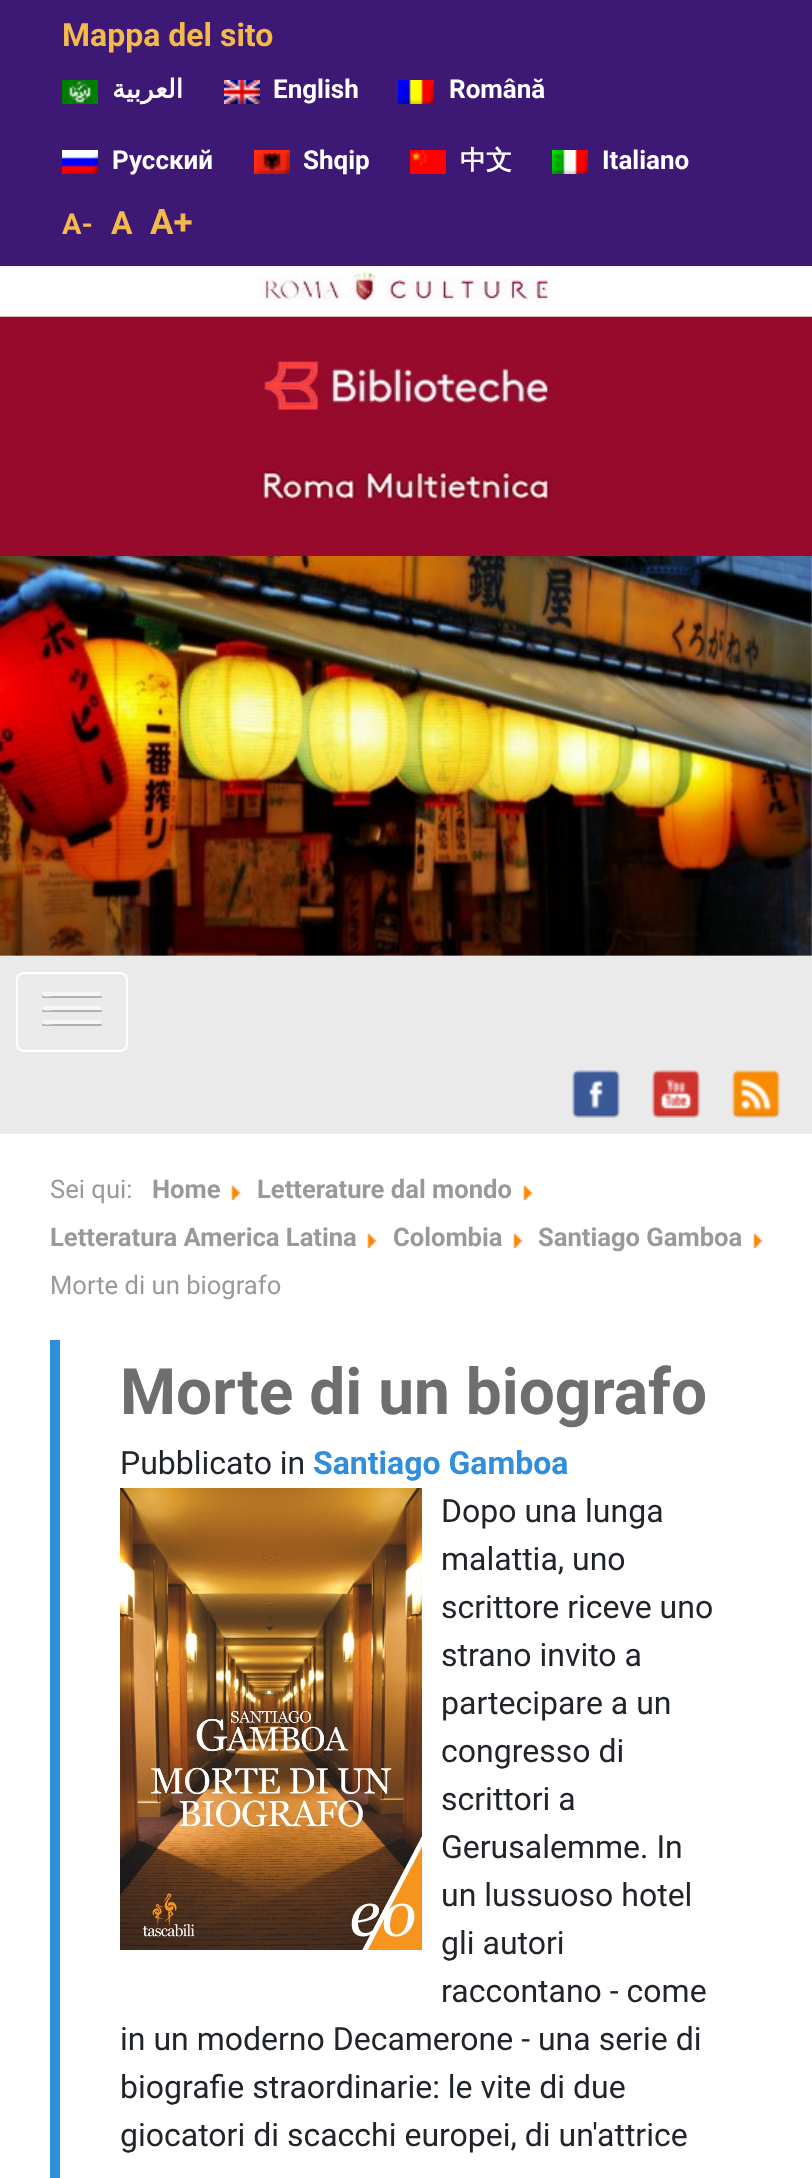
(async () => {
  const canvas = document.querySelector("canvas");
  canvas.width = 812;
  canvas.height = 2178;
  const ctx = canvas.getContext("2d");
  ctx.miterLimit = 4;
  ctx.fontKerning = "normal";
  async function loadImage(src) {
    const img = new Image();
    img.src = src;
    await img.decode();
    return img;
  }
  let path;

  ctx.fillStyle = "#eaeaea";
  ctx.fillRect(0, 0, 812, 2178);
  ctx.fillStyle = "#3d1874";
  ctx.fillRect(0, 0, 812, 266);
  ctx.drawImage(await loadImage("img/1.png"), 62, 80, 36, 24);
  ctx.drawImage(await loadImage("img/2.png"), 224, 80, 36, 24);
  ctx.drawImage(await loadImage("img/3.png"), 398, 80, 36, 24);
  ctx.drawImage(await loadImage("img/4.png"), 62, 150, 36, 24);
  ctx.drawImage(await loadImage("img/5.png"), 254, 150, 36, 24);
  ctx.drawImage(await loadImage("img/6.png"), 410, 150, 36, 24);
  ctx.drawImage(await loadImage("img/7.png"), 552, 150, 36, 24);
  ctx.fillStyle = "#970a2c";
  ctx.fillRect(0, 509, 812, 47);
  ctx.drawImage(await loadImage("img/8.png"), 0, 266, 812, 243);
  ctx.drawImage(await loadImage("img/9.png"), 0, 556, 812, 400);
  ctx.beginPath();
  ctx.roundRect(17, 973, 110, 78, 7);
  ctx.strokeStyle = "#ffffff";
  ctx.lineWidth = 2;
  ctx.stroke();
  ctx.fillStyle = "#b0b0b0";
  path = new Path2D("M42 995C42 996 42 997 43 998H101C102 997 102 996 102 995L101 996H53C53 996 44 998 42 995Z");
  ctx.fill(path);
  ctx.fillStyle = "#f5f5f5";
  ctx.beginPath();
  ctx.roundRect(42, 992, 60, 4, 2);
  ctx.fill();
  ctx.fillStyle = "#b0b0b0";
  path = new Path2D("M42 1009C42 1010 42 1011 43 1012H101C102 1011 102 1010 102 1009L101 1010H53C53 1010 44 1012 42 1009Z");
  ctx.fill(path);
  ctx.fillStyle = "#f5f5f5";
  ctx.beginPath();
  ctx.roundRect(42, 1006, 60, 4, 2);
  ctx.fill();
  ctx.fillStyle = "#b0b0b0";
  path = new Path2D("M42 1023C42 1024 42 1025 43 1026H101C102 1025 102 1024 102 1023L101 1024H53C53 1024 44 1026 42 1023Z");
  ctx.fill(path);
  ctx.fillStyle = "#f5f5f5";
  ctx.beginPath();
  ctx.roundRect(42, 1020, 60, 4, 2);
  ctx.fill();
  ctx.drawImage(await loadImage("img/10.png"), 572, 1070, 48, 48);
  ctx.drawImage(await loadImage("img/11.png"), 652, 1070, 48, 48);
  ctx.drawImage(await loadImage("img/12.png"), 732, 1070, 48, 48);
  ctx.fillStyle = "#ffffff";
  ctx.fillRect(0, 1134, 812, 1044);
  ctx.drawImage(await loadImage("img/13.png"), 231, 1185, 10, 15);
  ctx.drawImage(await loadImage("img/13.png"), 523, 1185, 10, 15);
  ctx.drawImage(await loadImage("img/13.png"), 367, 1233, 10, 15);
  ctx.drawImage(await loadImage("img/13.png"), 513, 1233, 10, 15);
  ctx.drawImage(await loadImage("img/13.png"), 753, 1233, 10, 15);
  ctx.fillStyle = "#318edd";
  ctx.fillRect(50, 1340, 10, 838);
  ctx.drawImage(await loadImage("img/14.png"), 120, 1488, 302, 462);
  ctx.font = "bold 32px Roboto";
  ctx.fillStyle = "#f3b94d";
  ctx.fillText("Mappa del sito", 62, 46);
  ctx.direction = "rtl";
  ctx.font = "bold 26px DejaVu Sans";
  ctx.fillStyle = "#ffffff";
  ctx.fillText("العربية", 183, 98);
  ctx.direction = "ltr";
  ctx.font = "bold 26px Roboto";
  for (const [text, x, y] of [
    ["English", 273, 98],
    ["Română", 449, 98],
    ["Русский", 112, 169],
    ["Shqip", 303, 169],
  ]) {
    ctx.fillText(text, x, y);
  }
  ctx.font = "bold 26px WenQuanYi Zen Hei";
  ctx.fillText("中文", 460, 169);
  ctx.font = "bold 26px Roboto";
  ctx.fillText("Italiano", 602, 169);
  ctx.font = "bold 29px Roboto";
  ctx.fillStyle = "#f3b94d";
  ctx.fillText("A-", 62, 234);
  ctx.font = "bold 32px Roboto";
  ctx.fillText("A", 111, 234);
  ctx.font = "bold 35px Roboto";
  ctx.fillText("A+", 150, 234);
  ctx.font = "25.6px Roboto";
  ctx.fillStyle = "#999999";
  ctx.fillText("Sei qui:", 50, 1198);
  ctx.font = "bold 25.6px Roboto";
  for (const [text, x, y] of [
    ["Home", 152, 1198],
    ["Letterature dal mondo", 257, 1198],
    ["Letteratura America Latina", 50, 1246],
    ["Colombia", 393, 1246],
    ["Santiago Gamboa", 538, 1246],
  ]) {
    ctx.fillText(text, x, y);
  }
  ctx.font = "25.6px Roboto";
  ctx.fillText("Morte di un biografo", 50, 1294);
  ctx.font = "bold 64px Roboto";
  ctx.fillStyle = "#6e6e6e";
  ctx.fillText("Morte di un biografo", 120, 1414);
  ctx.font = "32px Roboto";
  ctx.fillStyle = "#212529";
  ctx.fillText("Pubblicato in", 120, 1474);
  ctx.font = "bold 32px Roboto";
  ctx.fillStyle = "#318edd";
  ctx.fillText("Santiago Gamboa", 313, 1474);
  ctx.font = "32px Roboto";
  ctx.fillStyle = "#212529";
  for (const [text, x, y] of [
    ["Dopo una lunga", 441, 1522],
    ["malattia, uno", 441, 1570],
    ["scrittore riceve uno", 441, 1618],
    ["strano invito a", 441, 1666],
    ["partecipare a un", 441, 1714],
    ["congresso di", 441, 1762],
    ["scrittori a", 441, 1810],
    ["Gerusalemme. In", 441, 1858],
    ["un lussuoso hotel", 441, 1906],
    ["gli autori", 441, 1954],
    ["raccontano - come", 441, 2002],
    ["in un moderno Decamerone - una serie di", 120, 2050],
    ["biografie straordinarie: le vite di due", 120, 2098],
    ["giocatori di scacchi europei, di un'attrice", 120, 2146],
  ]) {
    ctx.fillText(text, x, y);
  }
})();
